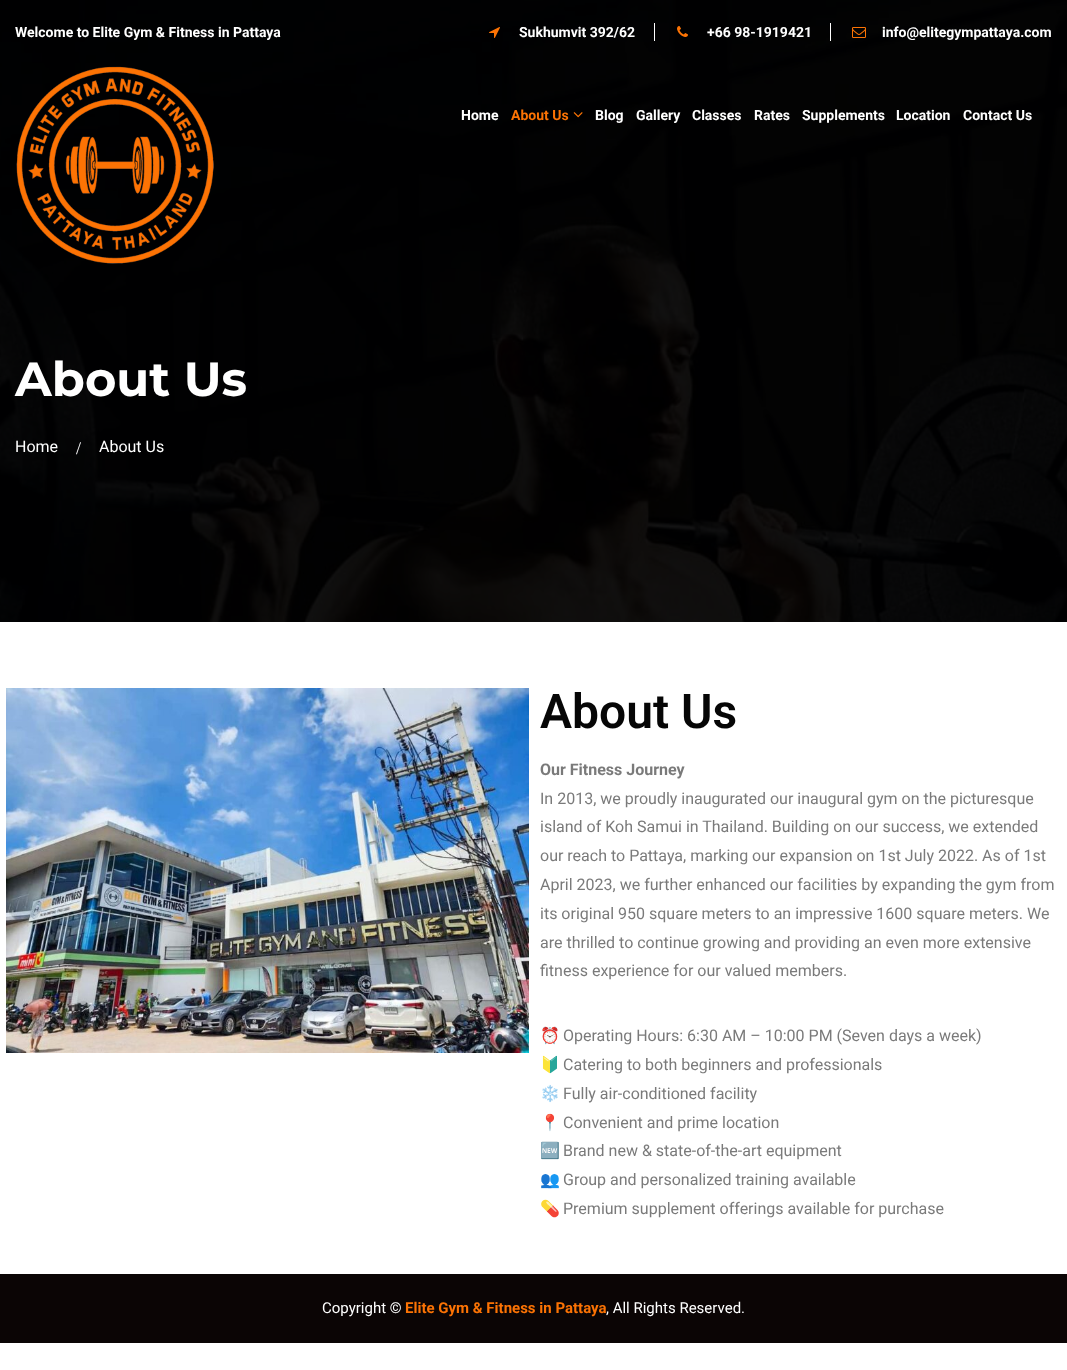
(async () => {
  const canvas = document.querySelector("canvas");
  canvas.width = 1067;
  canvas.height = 1370;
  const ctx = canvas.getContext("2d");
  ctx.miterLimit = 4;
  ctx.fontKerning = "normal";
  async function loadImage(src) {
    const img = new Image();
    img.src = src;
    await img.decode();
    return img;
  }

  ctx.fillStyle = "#ffffff";
  ctx.fillRect(0, 0, 1067, 1370);
  ctx.drawImage(await loadImage("img/6.png"), 0, 0, 1067, 622);
  ctx.fillRect(654, 23, 1, 18);
  ctx.drawImage(await loadImage("img/1.png"), 489, 27, 11, 11);
  ctx.fillRect(830, 23, 1, 18);
  ctx.drawImage(await loadImage("img/2.png"), 677, 26, 11, 11);
  ctx.drawImage(await loadImage("img/3.png"), 852, 27, 14, 11);
  ctx.drawImage(await loadImage("img/4.png"), 16, 66, 198, 198);
  ctx.drawImage(await loadImage("img/5.png"), 573, 112, 10, 6);
  ctx.drawImage(await loadImage("img/7.png"), 6, 688, 523, 365);
  ctx.fillStyle = "#0b0505";
  ctx.fillRect(0, 1274, 1067, 69);
  ctx.font = "bold 14px Roboto";
  ctx.fillStyle = "#ffffff";
  for (const [text, x, y] of [
    ["Welcome to Elite Gym & Fitness in Pattaya", 15, 37],
    ["Sukhumvit 392/62", 519, 37],
    ["+66 98-1919421", 707, 37],
    ["info@elitegympattaya.com", 882, 37],
    ["Home", 461, 120],
  ]) {
    ctx.fillText(text, x, y);
  }
  ctx.fillStyle = "#fc7304";
  ctx.fillText("About Us", 511, 120);
  ctx.fillStyle = "#ffffff";
  for (const [text, x, y] of [
    ["Blog", 595, 120],
    ["Gallery", 636, 120],
    ["Classes", 692, 120],
    ["Rates", 754, 120],
    ["Supplements", 802, 120],
    ["Location", 896, 120],
    ["Contact Us", 963, 120],
  ]) {
    ctx.fillText(text, x, y);
  }
  ctx.font = "bold 48px Montserrat";
  ctx.fillText("About Us", 15, 396);
  ctx.font = "16px Roboto";
  ctx.fillText("Home", 15, 452);
  ctx.font = "18px Liberation Serif";
  ctx.fillText("/", 76, 454);
  ctx.font = "16px Roboto";
  ctx.fillText("About Us", 99, 452);
  ctx.font = "600 48px Roboto";
  ctx.fillStyle = "#060606";
  ctx.fillText("About Us", 540, 728);
  ctx.font = "bold 16px Roboto";
  ctx.fillStyle = "#7a7a7a";
  ctx.fillText("Our Fitness Journey", 540, 775);
  ctx.font = "16px Roboto";
  for (const [text, x, y] of [
    ["In 2013, we proudly inaugurated our inaugural gym on the picturesque", 540, 804],
    ["island of Koh Samui in Thailand. Building on our success, we extended", 540, 832],
    ["our reach to Pattaya, marking our expansion on 1st July 2022. As of 1st", 540, 861],
    ["April 2023, we further enhanced our facilities by expanding the gym from", 540, 890],
    ["its original 950 square meters to an impressive 1600 square meters. We", 540, 919],
    ["are thrilled to continue growing and providing an even more extensive", 540, 948],
    ["fitness experience for our valued members.", 540, 976],
  ]) {
    ctx.fillText(text, x, y);
  }
  ctx.font = "16px Noto Color Emoji";
  ctx.fillText("⏰", 540, 1041);
  ctx.font = "16px Roboto";
  ctx.fillText("Operating Hours: 6:30 AM – 10:00 PM (Seven days a week)", 563, 1041);
  ctx.font = "16px Noto Color Emoji";
  ctx.fillText("🔰", 540, 1070);
  ctx.font = "16px Roboto";
  ctx.fillText("Catering to both beginners and professionals", 563, 1070);
  ctx.font = "16px Noto Color Emoji";
  ctx.fillText("❄️", 540, 1099);
  ctx.font = "16px Roboto";
  ctx.fillText("Fully air-conditioned facility", 563, 1099);
  ctx.font = "16px Noto Color Emoji";
  ctx.fillText("📍", 540, 1128);
  ctx.font = "16px Roboto";
  ctx.fillText("Convenient and prime location", 563, 1128);
  ctx.font = "16px Noto Color Emoji";
  ctx.fillText("🆕", 540, 1156);
  ctx.font = "16px Roboto";
  ctx.fillText("Brand new & state-of-the-art equipment", 563, 1156);
  ctx.font = "16px Noto Color Emoji";
  ctx.fillText("👥", 540, 1185);
  ctx.font = "16px Roboto";
  ctx.fillText("Group and personalized training available", 563, 1185);
  ctx.font = "16px Noto Color Emoji";
  ctx.fillText("💊", 540, 1214);
  ctx.font = "16px Roboto";
  ctx.fillText("Premium supplement offerings available for purchase", 563, 1214);
  ctx.font = "15px Roboto";
  ctx.fillStyle = "#ffffff";
  ctx.fillText("Copyright ©", 322, 1313);
  ctx.font = "bold 15px Roboto";
  ctx.fillStyle = "#fc7304";
  ctx.fillText("Elite Gym & Fitness in Pattaya", 405, 1313);
  ctx.font = "15px Roboto";
  ctx.fillStyle = "#ffffff";
  ctx.fillText(", All Rights Reserved.", 606, 1313);
})();
